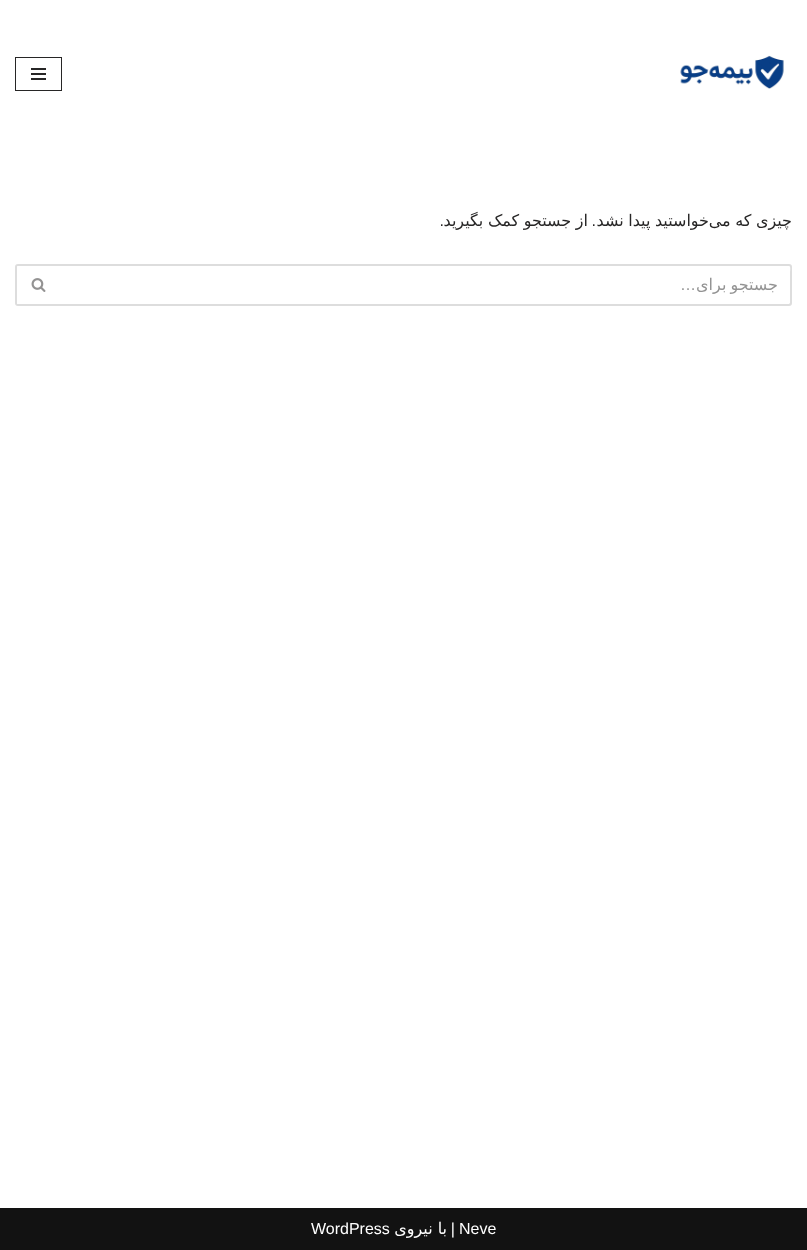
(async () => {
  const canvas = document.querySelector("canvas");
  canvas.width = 807;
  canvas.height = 1250;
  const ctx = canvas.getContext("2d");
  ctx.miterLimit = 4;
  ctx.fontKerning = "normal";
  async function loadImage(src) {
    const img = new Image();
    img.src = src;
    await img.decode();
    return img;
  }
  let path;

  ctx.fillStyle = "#ffffff";
  ctx.fillRect(0, 0, 807, 1250);
  ctx.drawImage(await loadImage("img/1.png"), 680, 55, 104, 34);
  ctx.strokeStyle = "#272626";
  ctx.strokeRect(15.5, 57.5, 46, 33);
  for (const [x, y, w, h, color] of [
    [31, 68, 15, 2, "#272626"],
    [31, 73, 15, 2, "#272626"],
    [31, 78, 15, 2, "#272626"],
  ]) {
    ctx.fillStyle = color;
    ctx.fillRect(x, y, w, h);
  }
  ctx.fillStyle = "#dddddd";
  path = new Path2D("M60 264H789C791 264 792 265 792 267V303C792 305 791 306 789 306H60ZM60 266H789C791 266 790 271 790 273V303L789 304H60Z");
  ctx.fill(path, "evenodd");
  path = new Path2D("M18 264H60V306H18C16 306 15 305 15 303V267C15 265 16 264 18 264ZM18 266H60V304H18C17 304 17 304 17 303V267C17 266 17 266 18 266Z");
  ctx.fill(path, "evenodd");
  ctx.drawImage(await loadImage("img/2.png"), 31, 278, 15, 14);
  ctx.fillStyle = "#121212";
  ctx.fillRect(0, 1208, 807, 42);
  ctx.wordSpacing = "-0.5px";
  ctx.direction = "rtl";
  ctx.font = "16px DejaVu Sans";
  ctx.fillStyle = "#272626";
  ctx.fillText("چیزی که می", 792, 226);
  ctx.fillText("خواستید پیدا نشد", 709, 226);
  ctx.wordSpacing = "0px";
  ctx.font = "16px Liberation Sans";
  ctx.fillText(".", 596, 226);
  ctx.wordSpacing = "-0.5px";
  ctx.font = "16px DejaVu Sans";
  ctx.fillText("از جستجو کمک بگیرید", 588, 226);
  ctx.wordSpacing = "0px";
  ctx.font = "16px Liberation Sans";
  ctx.fillText(".", 444, 226);
  ctx.wordSpacing = "-1px";
  ctx.font = "16px DejaVu Sans";
  ctx.fillStyle = "#939393";
  ctx.fillText("جستجو برای", 778, 290);
  ctx.wordSpacing = "0px";
  ctx.font = "16px Liberation Sans";
  ctx.fillText("…", 696, 290);
  ctx.direction = "ltr";
  ctx.fillStyle = "#ffffff";
  ctx.fillText("Neve", 459, 1234);
  ctx.direction = "rtl";
  ctx.fillText("|", 455, 1234);
  ctx.font = "16px DejaVu Sans";
  ctx.fillText("با نیروی", 447, 1234);
  ctx.direction = "ltr";
  ctx.font = "16px Liberation Sans";
  ctx.fillText("WordPress", 311, 1234);
})();
